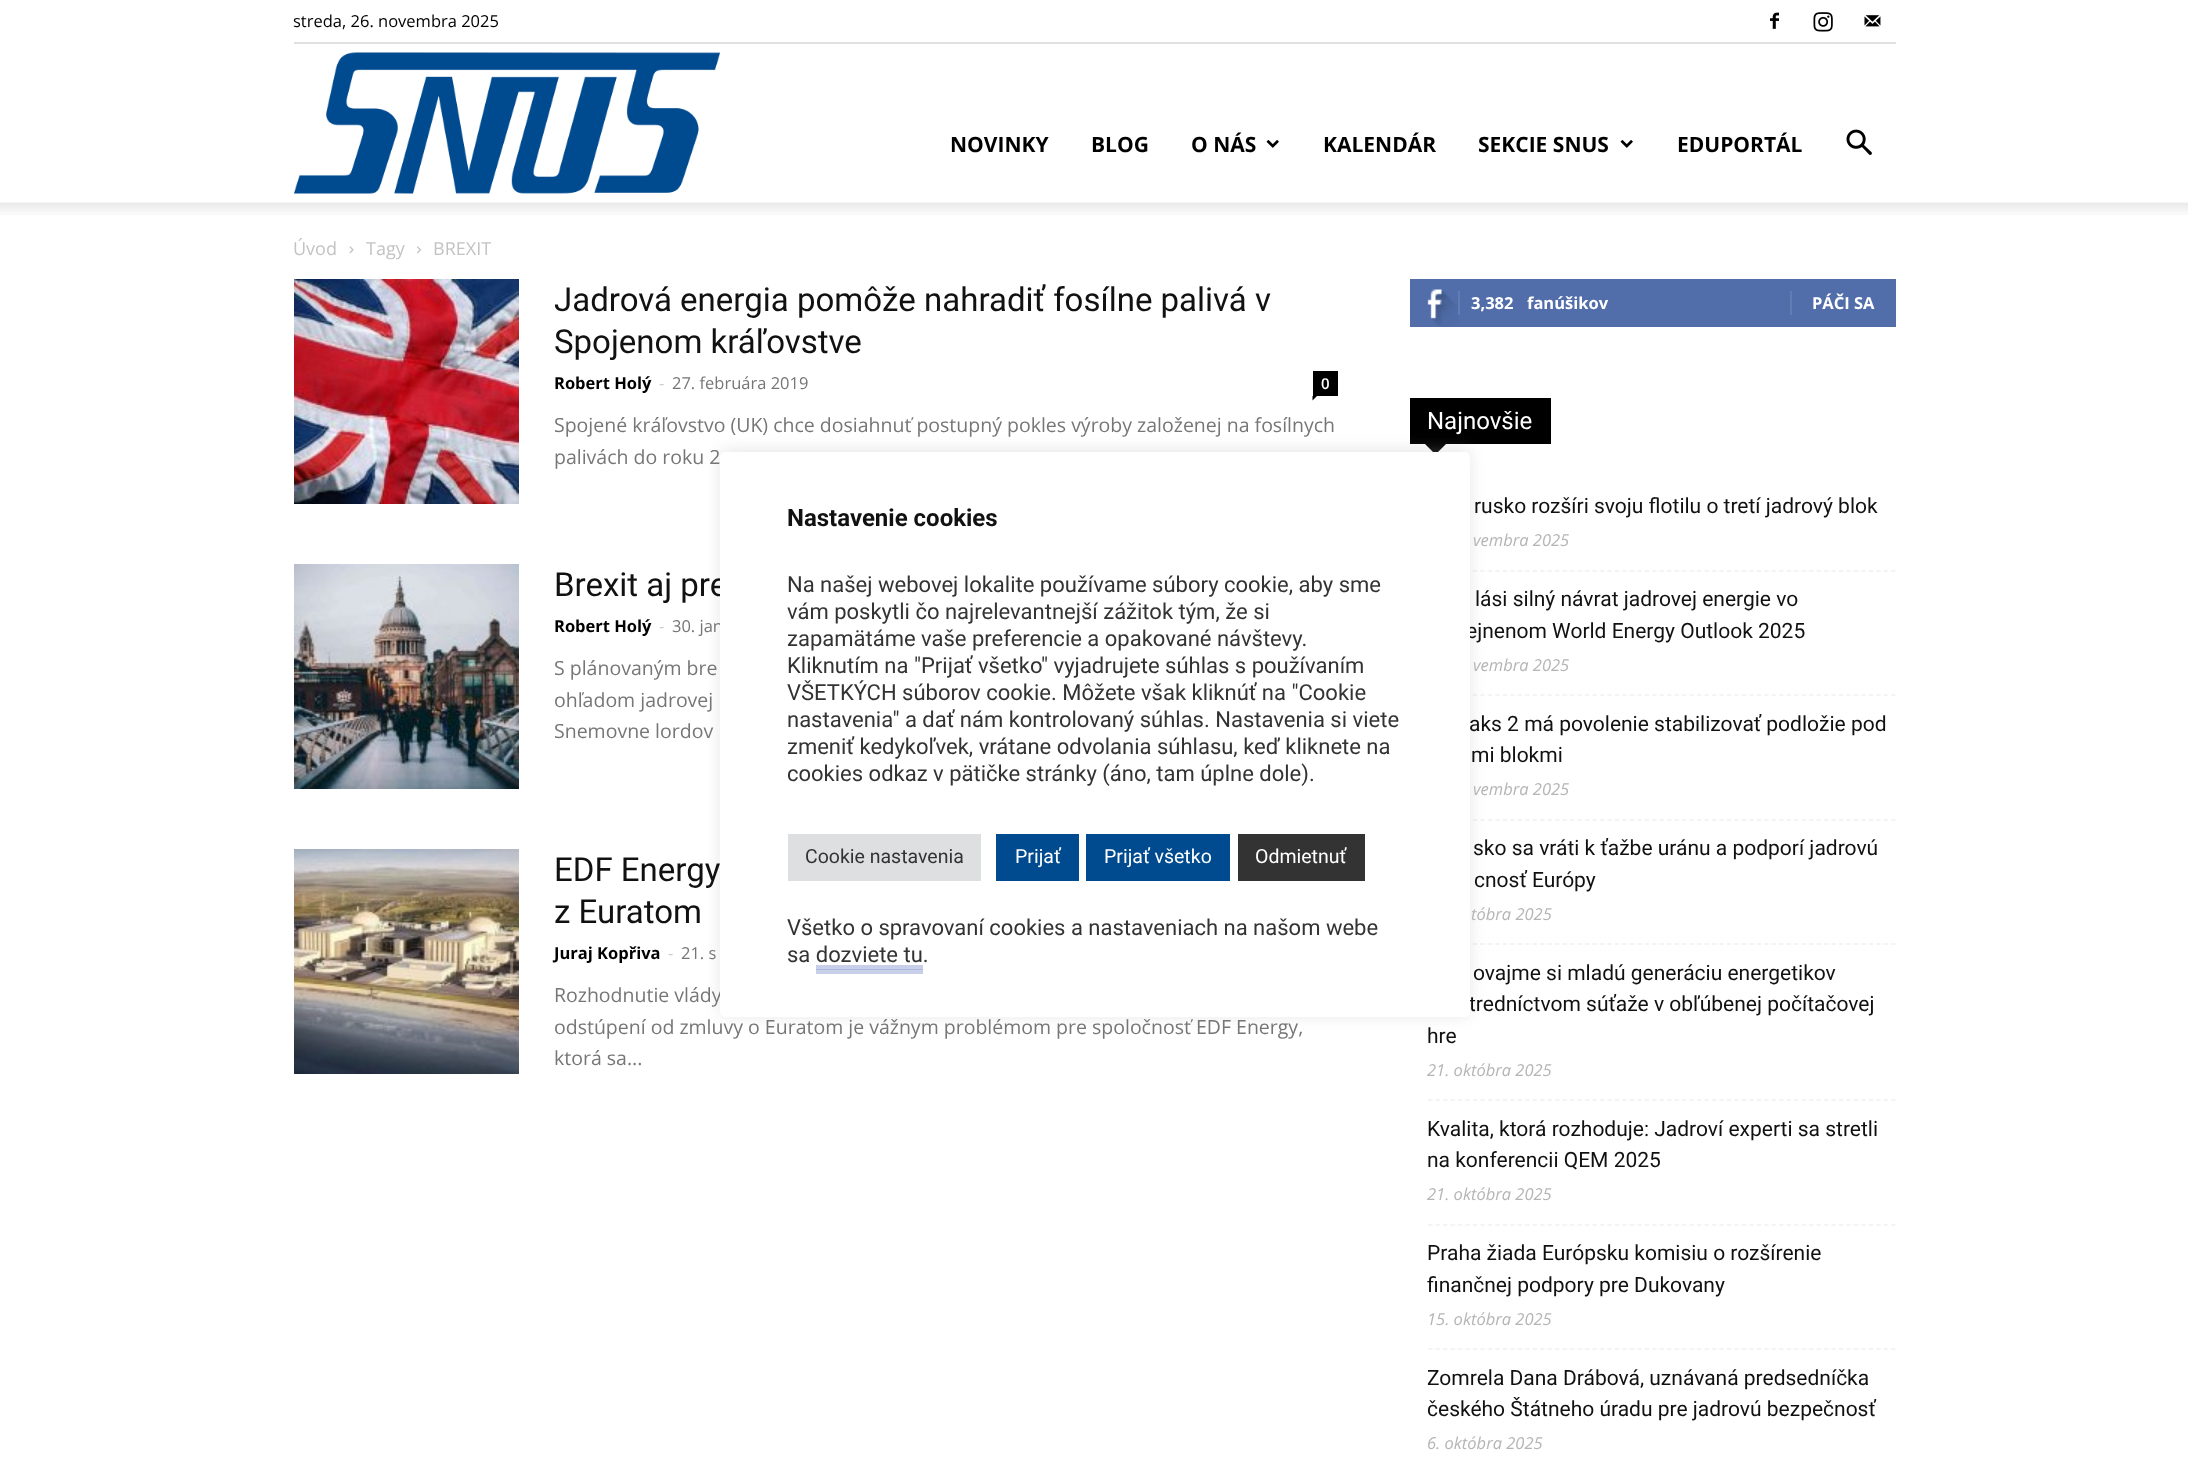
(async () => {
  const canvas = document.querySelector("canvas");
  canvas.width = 2188;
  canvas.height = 1461;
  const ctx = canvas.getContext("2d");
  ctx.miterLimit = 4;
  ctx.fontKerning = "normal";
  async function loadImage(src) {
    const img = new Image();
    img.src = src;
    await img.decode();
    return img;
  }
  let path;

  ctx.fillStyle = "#ffffff";
  ctx.fillRect(0, 0, 2188, 1461);
  ctx.fillStyle = "#e0e0e0";
  ctx.fillRect(294, 42, 1602, 2);
  ctx.drawImage(await loadImage("img/1.png"), 1770, 12, 9, 17);
  ctx.drawImage(await loadImage("img/2.png"), 1813, 12, 20, 20);
  ctx.drawImage(await loadImage("img/3.png"), 1864, 15, 17, 12);
  ctx.drawImage(await loadImage("img/4.png"), 294, 52, 426, 142);
  ctx.drawImage(await loadImage("img/5.png"), 1266, 140, 13, 8);
  ctx.drawImage(await loadImage("img/5.png"), 1620, 140, 13, 8);
  ctx.drawImage(await loadImage("img/6.png"), 1846, 129, 26, 26);
  ctx.drawImage(await loadImage("img/7.png"), 0, 202, 2188, 13);
  ctx.drawImage(await loadImage("img/8.png"), 349, 246, 5, 8);
  ctx.drawImage(await loadImage("img/9.png"), 417, 246, 4, 8);
  ctx.drawImage(await loadImage("img/10.png"), 294, 279, 225, 225);
  ctx.fillStyle = "#000000";
  ctx.fillRect(1313, 371, 25, 25);
  path = new Path2D("M1312.5 396H1317L1312.5 400.5Z");
  ctx.fill(path);
  ctx.drawImage(await loadImage("img/11.png"), 294, 564, 225, 225);
  ctx.drawImage(await loadImage("img/12.png"), 294, 849, 225, 225);
  ctx.fillStyle = "#516eab";
  ctx.fillRect(1410, 279, 486, 48);
  ctx.drawImage(await loadImage("img/13.png"), 1427, 289, 31, 38);
  for (const [x, y, w, h, color] of [
    [1458, 291, 2, 24, "#627db3"],
    [1790, 291, 2, 24, "#627db3"],
    [1410, 398, 141, 46, "#000000"],
  ]) {
    ctx.fillStyle = color;
    ctx.fillRect(x, y, w, h);
  }
  path = new Path2D("M1425 444H1446L1435.5 454.5Z");
  ctx.fill(path);
  path = new Path2D("M1428 571H1896");
  ctx.strokeStyle = "#f1f1f1";
  ctx.lineWidth = 1.5;
  ctx.setLineDash([4.5, 2.97]);
  ctx.stroke(path);
  path = new Path2D("M1428 695H1896");
  ctx.stroke(path);
  path = new Path2D("M1428 820H1896");
  ctx.stroke(path);
  path = new Path2D("M1428 944H1896");
  ctx.stroke(path);
  path = new Path2D("M1428 1100H1896");
  ctx.stroke(path);
  path = new Path2D("M1428 1225H1896");
  ctx.stroke(path);
  path = new Path2D("M1428 1349H1896");
  ctx.stroke(path);
  ctx.fillStyle = "rgba(172, 171, 171, 0.3)";
  ctx.filter = "blur(7.5px)";
  ctx.beginPath();
  ctx.roundRect(720, 450, 750, 566, 5);
  ctx.fill();
  ctx.filter = "none";
  ctx.font = "16.5px Open Sans";
  ctx.fillStyle = "#000000";
  ctx.fillText("streda, 26. novembra 2025", 293, 27);
  ctx.font = "bold 21px Open Sans";
  for (const [text, x, y] of [
    ["NOVINKY", 950, 152],
    ["BLOG", 1091, 152],
    ["O NÁS", 1191, 152],
    ["KALENDÁR", 1323, 152],
    ["SEKCIE SNUS", 1478, 152],
    ["EDUPORTÁL", 1677, 152],
  ]) {
    ctx.fillText(text, x, y);
  }
  ctx.font = "18px Open Sans";
  ctx.fillStyle = "#c3c3c3";
  for (const [text, x, y] of [
    ["Úvod", 293, 255],
    ["Tagy", 366, 255],
    ["BREXIT", 433, 255],
  ]) {
    ctx.fillText(text, x, y);
  }
  ctx.font = "33px Roboto";
  ctx.fillStyle = "#111111";
  ctx.fillText("Jadrová energia pomôže nahradiť fosílne palivá v", 554, 311);
  ctx.fillText("Spojenom kráľovstve", 554, 353);
  ctx.font = "bold 16.5px Open Sans";
  ctx.fillStyle = "#000000";
  ctx.fillText("Robert Holý", 554, 389);
  ctx.font = "16.5px Open Sans";
  ctx.fillStyle = "#cccccc";
  ctx.fillText("-", 659, 389);
  ctx.fillStyle = "#767676";
  ctx.fillText("27. februára 2019", 672, 389);
  ctx.font = "600 15px Open Sans";
  ctx.fillStyle = "#ffffff";
  ctx.fillText("0", 1321, 389);
  ctx.font = "19.5px Open Sans";
  ctx.fillStyle = "#767676";
  ctx.fillText("Spojené kráľovstvo (UK) chce dosiahnuť postupný pokles výroby založenej na fosílnych", 554, 432);
  ctx.fillText("palivách do roku 2", 554, 464);
  ctx.font = "33px Roboto";
  ctx.fillStyle = "#111111";
  ctx.fillText("Brexit aj pre", 554, 596);
  ctx.font = "bold 16.5px Open Sans";
  ctx.fillStyle = "#000000";
  ctx.fillText("Robert Holý", 554, 632);
  ctx.font = "16.5px Open Sans";
  ctx.fillStyle = "#cccccc";
  ctx.fillText("-", 659, 632);
  ctx.fillStyle = "#767676";
  ctx.fillText("30. jan", 672, 632);
  ctx.font = "19.5px Open Sans";
  for (const [text, x, y] of [
    ["S plánovaným bre", 554, 675],
    ["ohľadom jadrovej", 554, 707],
    ["Snemovne lordov", 554, 738],
  ]) {
    ctx.fillText(text, x, y);
  }
  ctx.font = "33px Roboto";
  ctx.fillStyle = "#111111";
  ctx.fillText("EDF Energy", 554, 881);
  ctx.fillText("z Euratom", 554, 923);
  ctx.font = "bold 16.5px Open Sans";
  ctx.fillStyle = "#000000";
  ctx.fillText("Juraj Kopřiva", 554, 959);
  ctx.font = "16.5px Open Sans";
  ctx.fillStyle = "#cccccc";
  ctx.fillText("-", 668, 959);
  ctx.fillStyle = "#767676";
  ctx.fillText("21. s", 681, 959);
  ctx.font = "19.5px Open Sans";
  for (const [text, x, y] of [
    ["Rozhodnutie vlády", 554, 1002],
    ["odstúpení od zmluvy o Euratom je vážnym problémom pre spoločnosť EDF Energy,", 554, 1034],
    ["ktorá sa...", 554, 1065],
  ]) {
    ctx.fillText(text, x, y);
  }
  ctx.font = "bold 16.5px Open Sans";
  ctx.fillStyle = "#ffffff";
  for (const [text, x, y] of [
    ["3,382", 1471, 309],
    ["fanúšikov", 1527, 309],
    ["PÁČI SA", 1812, 309],
  ]) {
    ctx.fillText(text, x, y);
  }
  ctx.font = "24px Roboto";
  ctx.fillText("Najnovšie", 1427, 429);
  ctx.font = "21px Roboto";
  ctx.fillStyle = "#111111";
  ctx.fillText("rusko rozšíri svoju flotilu o tretí jadrový blok", 1474, 513);
  ctx.font = "italic 16.5px Open Sans";
  ctx.fillStyle = "#b5b5b5";
  ctx.fillText("vembra 2025", 1473, 546);
  ctx.font = "21px Roboto";
  ctx.fillStyle = "#111111";
  ctx.fillText("lási silný návrat jadrovej energie vo", 1475, 606);
  ctx.fillText("ejnenom World Energy Outlook 2025", 1466, 638);
  ctx.font = "italic 16.5px Open Sans";
  ctx.fillStyle = "#b5b5b5";
  ctx.fillText("vembra 2025", 1473, 671);
  ctx.font = "21px Roboto";
  ctx.fillStyle = "#111111";
  ctx.fillText("aks 2 má povolenie stabilizovať podložie pod", 1469, 731);
  ctx.fillText("mi blokmi", 1471, 762);
  ctx.font = "italic 16.5px Open Sans";
  ctx.fillStyle = "#b5b5b5";
  ctx.fillText("vembra 2025", 1473, 795);
  ctx.font = "21px Roboto";
  ctx.fillStyle = "#111111";
  ctx.fillText("sko sa vráti k ťažbe uránu a podporí jadrovú", 1473, 855);
  ctx.fillText("cnosť Európy", 1474, 887);
  ctx.font = "italic 16.5px Open Sans";
  ctx.fillStyle = "#b5b5b5";
  ctx.fillText("tóbra 2025", 1471, 920);
  ctx.font = "21px Roboto";
  ctx.fillStyle = "#111111";
  for (const [text, x, y] of [
    ["ovajme si mladú generáciu energetikov", 1473, 980],
    ["tredníctvom súťaže v obľúbenej počítačovej", 1469, 1011],
    ["hre", 1427, 1043],
  ]) {
    ctx.fillText(text, x, y);
  }
  ctx.font = "italic 16.5px Open Sans";
  ctx.fillStyle = "#b5b5b5";
  ctx.fillText("21. októbra 2025", 1427, 1076);
  ctx.font = "21px Roboto";
  ctx.fillStyle = "#111111";
  ctx.fillText("Kvalita, ktorá rozhoduje: Jadroví experti sa stretli", 1427, 1136);
  ctx.fillText("na konferencii QEM 2025", 1427, 1167);
  ctx.font = "italic 16.5px Open Sans";
  ctx.fillStyle = "#b5b5b5";
  ctx.fillText("21. októbra 2025", 1427, 1200);
  ctx.font = "21px Roboto";
  ctx.fillStyle = "#111111";
  ctx.fillText("Praha žiada Európsku komisiu o rozšírenie", 1427, 1260);
  ctx.fillText("finančnej podpory pre Dukovany", 1427, 1292);
  ctx.font = "italic 16.5px Open Sans";
  ctx.fillStyle = "#b5b5b5";
  ctx.fillText("15. októbra 2025", 1427, 1325);
  ctx.font = "21px Roboto";
  ctx.fillStyle = "#111111";
  ctx.fillText("Zomrela Dana Drábová, uznávaná predsedníčka", 1427, 1385);
  ctx.fillText("českého Štátneho úradu pre jadrovú bezpečnosť", 1427, 1416);
  ctx.font = "italic 16.5px Open Sans";
  ctx.fillStyle = "#b5b5b5";
  ctx.fillText("6. októbra 2025", 1427, 1449);
  ctx.fillStyle = "#ffffff";
  ctx.beginPath();
  ctx.roundRect(720, 452, 750, 565, 5);
  ctx.fill();
  ctx.fillStyle = "#c8d0e9";
  ctx.fillRect(816, 970, 107, 4);
  ctx.font = "bold 24px Roboto";
  ctx.fillStyle = "#111111";
  ctx.fillText("Nastavenie cookies", 787, 526);
  ctx.font = "22px Roboto";
  ctx.fillStyle = "#333333";
  for (const [text, x, y] of [
    ["Na našej webovej lokalite používame súbory cookie, aby sme", 787, 592],
    ["vám poskytli čo najrelevantnejší zážitok tým, že si", 787, 619],
    ["zapamätáme vaše preferencie a opakované návštevy.", 787, 646],
    ["Kliknutím na \"Prijať všetko\" vyjadrujete súhlas s používaním", 787, 673],
    ["VŠETKÝCH súborov cookie. Môžete však kliknúť na \"Cookie", 787, 700],
    ["nastavenia\" a dať nám kontrolovaný súhlas. Nastavenia si viete", 787, 727],
    ["zmeniť kedykoľvek, vrátane odvolania súhlasu, keď kliknete na", 787, 754],
    ["cookies odkaz v pätičke stránky (áno, tam úplne dole).", 787, 781],
  ]) {
    ctx.fillText(text, x, y);
  }
  ctx.fillStyle = "#dedfe0";
  ctx.fillRect(788, 834, 193, 47);
  ctx.font = "19.5px Roboto";
  ctx.fillStyle = "#333333";
  ctx.fillText("Cookie nastavenia", 805, 863);
  ctx.fillStyle = "#004a8f";
  ctx.fillRect(996, 834, 83, 47);
  ctx.fillStyle = "#ffffff";
  ctx.fillText("Prijať", 1015, 863);
  ctx.fillStyle = "#004a8f";
  ctx.fillRect(1086, 834, 144, 47);
  ctx.fillStyle = "#ffffff";
  ctx.fillText("Prijať všetko", 1104, 863);
  ctx.fillStyle = "#333333";
  ctx.fillRect(1238, 834, 127, 47);
  ctx.fillStyle = "#ffffff";
  ctx.fillText("Odmietnuť", 1255, 863);
  ctx.font = "22px Roboto";
  ctx.fillStyle = "#333333";
  ctx.fillText("Všetko o spravovaní cookies a nastaveniach na našom webe", 787, 935);
  ctx.fillText("sa dozviete tu.", 787, 962);
  ctx.fillStyle = "#c8d0e9";
  ctx.fillRect(816, 965, 107, 4);
  ctx.fillStyle = "#adb9de";
  ctx.fillRect(816, 969, 107, 1);
})();
